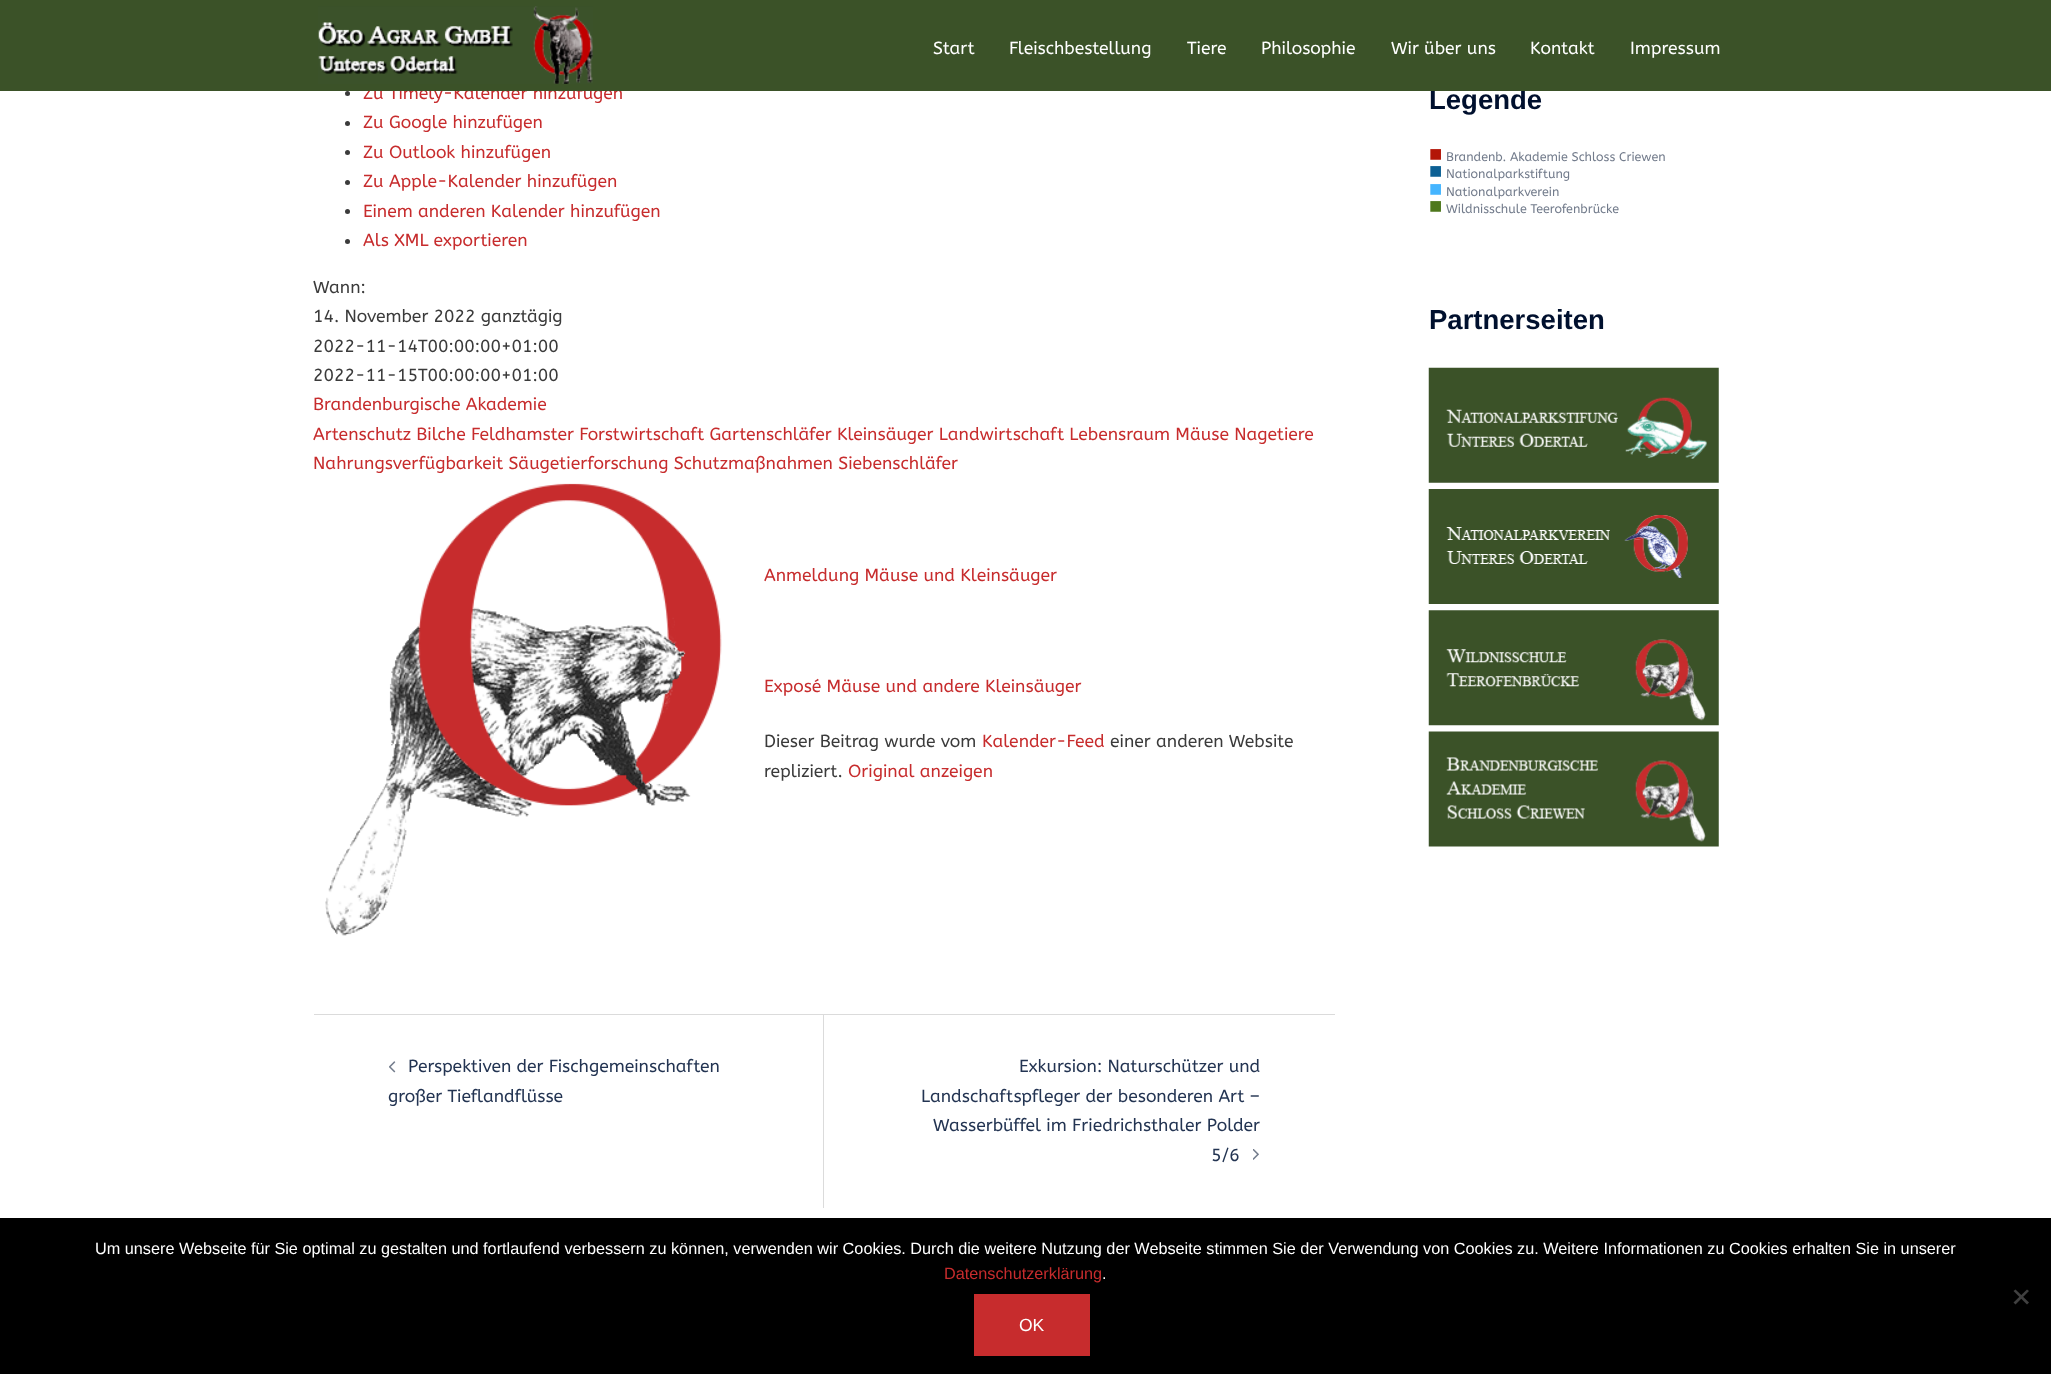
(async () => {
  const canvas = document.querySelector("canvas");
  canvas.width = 2051;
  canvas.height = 1374;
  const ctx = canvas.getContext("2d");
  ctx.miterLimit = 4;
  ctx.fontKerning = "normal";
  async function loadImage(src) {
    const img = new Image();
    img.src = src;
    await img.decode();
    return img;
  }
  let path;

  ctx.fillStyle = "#ffffff";
  ctx.fillRect(0, 0, 2051, 1374);
  ctx.fillStyle = "#3b3b3b";
  ctx.beginPath();
  ctx.arc(347.5, 93.5, 2.5, 0, Math.PI * 2);
  ctx.fill();
  ctx.beginPath();
  ctx.arc(347.5, 123.5, 2.5, 0, Math.PI * 2);
  ctx.fill();
  ctx.beginPath();
  ctx.arc(347.5, 152.5, 2.5, 0, Math.PI * 2);
  ctx.fill();
  ctx.beginPath();
  ctx.arc(347.5, 182.5, 2.5, 0, Math.PI * 2);
  ctx.fill();
  ctx.beginPath();
  ctx.arc(347.5, 211.5, 2.5, 0, Math.PI * 2);
  ctx.fill();
  ctx.beginPath();
  ctx.arc(347.5, 241.5, 2.5, 0, Math.PI * 2);
  ctx.fill();
  ctx.drawImage(await loadImage("img/2.png"), 325, 483, 397, 453);
  ctx.fillStyle = "#dbdbdb";
  ctx.fillRect(314, 1014, 1021, 1);
  ctx.fillRect(823, 1015, 1, 193);
  ctx.drawImage(await loadImage("img/3.png"), 389, 1061, 7, 12);
  ctx.drawImage(await loadImage("img/4.png"), 1253, 1149, 6, 11);
  ctx.drawImage(await loadImage("img/5.png"), 1428, 367, 291, 116);
  ctx.drawImage(await loadImage("img/6.png"), 1428, 489, 291, 115);
  ctx.drawImage(await loadImage("img/7.png"), 1428, 610, 291, 116);
  ctx.drawImage(await loadImage("img/8.png"), 1428, 731, 291, 116);
  ctx.fillStyle = "#000000";
  ctx.fillRect(0, 1218, 2051, 156);
  ctx.fillStyle = "#404040";
  path = new Path2D("M2027 1289.5L2029 1291L2015.5 1304.5L2013.5 1302.5Z");
  ctx.fill(path);
  path = new Path2D("M2013.5 1291L2015.5 1289.5L2029 1302.5L2027 1304.5Z");
  ctx.fill(path);
  ctx.fillStyle = "#c72c2d";
  ctx.fillRect(974, 1294, 116, 62);
  ctx.font = "17.5px ABeeZee";
  for (const [text, x, y] of [
    ["Zu Timely-Kalender hinzufügen", 363, 99],
    ["Zu Google hinzufügen", 363, 128],
    ["Zu Outlook hinzufügen", 363, 158],
    ["Zu Apple-Kalender hinzufügen", 363, 187],
    ["Einem anderen Kalender hinzufügen", 363, 217],
    ["Als XML exportieren", 363, 246],
  ]) {
    ctx.fillText(text, x, y);
  }
  ctx.fillStyle = "#3b3b3b";
  for (const [text, x, y] of [
    ["Wann:", 313, 293],
    ["14. November 2022 ganztägig", 313, 322],
    ["2022-11-14T00:00:00+01:00", 313, 352],
    ["2022-11-15T00:00:00+01:00", 313, 381],
  ]) {
    ctx.fillText(text, x, y);
  }
  ctx.fillStyle = "#c72c2d";
  for (const [text, x, y] of [
    ["Brandenburgische Akademie", 313, 410],
    ["Artenschutz Bilche Feldhamster Forstwirtschaft Gartenschläfer Kleinsäuger Landwirtschaft Lebensraum Mäuse Nagetiere", 313, 440],
    ["Nahrungsverfügbarkeit Säugetierforschung Schutzmaßnahmen Siebenschläfer", 313, 469],
    ["Anmeldung Mäuse und Kleinsäuger", 764, 581],
    ["Exposé Mäuse und andere Kleinsäuger", 764, 692],
  ]) {
    ctx.fillText(text, x, y);
  }
  ctx.fillStyle = "#3b3b3b";
  ctx.fillText("Dieser Beitrag wurde vom", 764, 747);
  ctx.fillStyle = "#c72c2d";
  ctx.fillText("Kalender-Feed", 982, 747);
  ctx.fillStyle = "#3b3b3b";
  ctx.fillText("einer anderen Website", 1110, 747);
  ctx.fillText("repliziert.", 764, 777);
  ctx.fillStyle = "#c72c2d";
  ctx.fillText("Original anzeigen", 848, 777);
  ctx.fillStyle = "#233452";
  for (const [text, x, y] of [
    ["Perspektiven der Fischgemeinschaften", 408, 1072],
    ["großer Tieflandflüsse", 388, 1102],
    ["Exkursion: Naturschützer und", 1019, 1072],
    ["Landschaftspfleger der besonderen Art –", 921, 1102],
    ["Wasserbüffel im Friedrichsthaler Polder", 933, 1131],
    ["5/6", 1211, 1161],
  ]) {
    ctx.fillText(text, x, y);
  }
  ctx.font = "bold 27.5px Liberation Sans";
  ctx.fillStyle = "#00102e";
  ctx.fillText("Legende", 1429, 109);
  ctx.fillStyle = "#3b5228";
  ctx.fillRect(0, 0, 2051, 91);
  ctx.font = "17.5px ABeeZee";
  ctx.fillStyle = "#ffffff";
  for (const [text, x, y] of [
    ["Impressum", 1630, 54],
    ["Kontakt", 1530, 54],
    ["Wir über uns", 1391, 54],
    ["Philosophie", 1261, 54],
    ["Tiere", 1187, 54],
    ["Fleischbestellung", 1009, 54],
    ["Start", 933, 54],
  ]) {
    ctx.fillText(text, x, y);
  }
  ctx.drawImage(await loadImage("img/1.png"), 318, 6, 275, 78);
  ctx.font = "22px Liberation Sans";
  ctx.fillStyle = "#b31507";
  ctx.fillText("■", 1429, 161);
  ctx.font = "12.5px ABeeZee";
  ctx.fillStyle = "#737c8c";
  ctx.fillText("Brandenb. Akademie Schloss Criewen", 1446, 161);
  ctx.font = "22px Liberation Sans";
  ctx.fillStyle = "#0c6094";
  ctx.fillText("■", 1429, 178);
  ctx.font = "12.5px ABeeZee";
  ctx.fillStyle = "#737c8c";
  ctx.fillText("Nationalparkstiftung", 1446, 178);
  ctx.font = "22px Liberation Sans";
  ctx.fillStyle = "#45b5ff";
  ctx.fillText("■", 1429, 196);
  ctx.font = "12.5px ABeeZee";
  ctx.fillStyle = "#737c8c";
  ctx.fillText("Nationalparkverein", 1446, 196);
  ctx.font = "22px Liberation Sans";
  ctx.fillStyle = "#4e781d";
  ctx.fillText("■", 1429, 213);
  ctx.font = "12.5px ABeeZee";
  ctx.fillStyle = "#737c8c";
  ctx.fillText("Wildnisschule Teerofenbrücke", 1446, 213);
  ctx.font = "bold 27.5px Liberation Sans";
  ctx.fillStyle = "#00102e";
  ctx.fillText("Partnerseiten", 1429, 329);
  ctx.font = "16.25px Liberation Sans";
  ctx.fillStyle = "#ffffff";
  ctx.fillText("Um unsere Webseite für Sie optimal zu gestalten und fortlaufend verbessern zu können, verwenden wir Cookies. Durch die weitere Nutzung der Webseite stimmen Sie der Verwendung von Cookies zu. Weitere Informationen zu Cookies erhalten Sie in unserer", 95, 1254);
  ctx.fillStyle = "#c72c2d";
  ctx.fillText("Datenschutzerklärung", 944, 1279);
  ctx.fillStyle = "#ffffff";
  ctx.fillText(".", 1102, 1279);
  ctx.font = "17.5px Liberation Sans";
  ctx.fillText("OK", 1019, 1331);
})();
